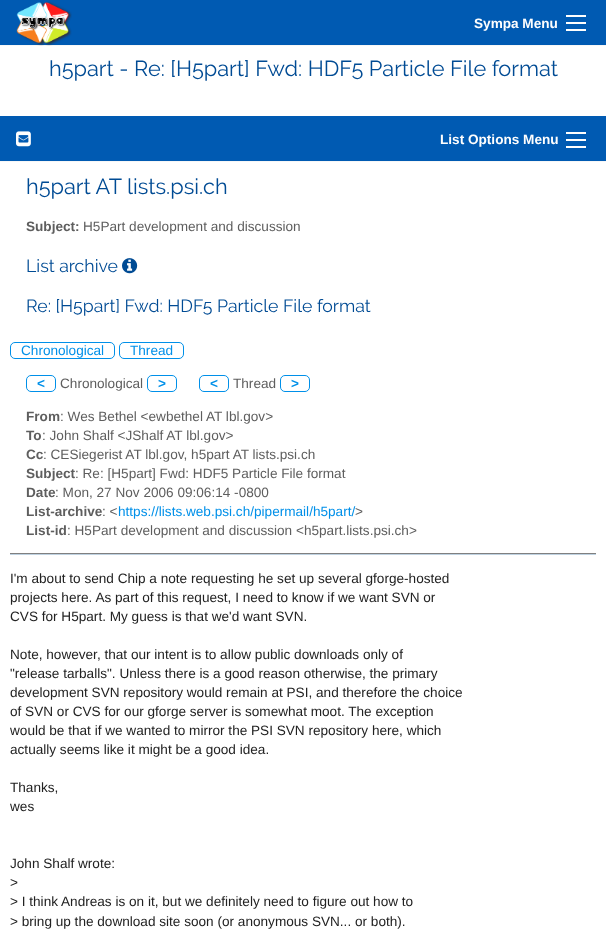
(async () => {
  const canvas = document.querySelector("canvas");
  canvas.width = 606;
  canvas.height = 937;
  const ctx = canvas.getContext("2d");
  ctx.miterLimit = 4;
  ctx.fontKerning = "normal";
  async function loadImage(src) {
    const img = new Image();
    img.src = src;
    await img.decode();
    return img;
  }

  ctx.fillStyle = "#f7f7f7";
  ctx.fillRect(0, 0, 606, 937);
  ctx.fillStyle = "#005ab2";
  ctx.fillRect(0, 0, 606, 45);
  ctx.drawImage(await loadImage("img/1.png"), 16, 1, 56, 45);
  for (const [x, y, w, h, color] of [
    [566, 29, 20, 2, "#fefefe"],
    [566, 22, 20, 2, "#fefefe"],
    [566, 15, 20, 2, "#fefefe"],
    [0, 46, 606, 70, "#ffffff"],
    [0, 116, 606, 45, "#005ab2"],
  ]) {
    ctx.fillStyle = color;
    ctx.fillRect(x, y, w, h);
  }
  ctx.drawImage(await loadImage("img/2.png"), 16, 131, 15, 16);
  for (const [x, y, w, h, color] of [
    [566, 146, 20, 2, "#fefefe"],
    [566, 139, 20, 2, "#fefefe"],
    [566, 132, 20, 2, "#fefefe"],
    [0, 162, 606, 775, "#ffffff"],
  ]) {
    ctx.fillStyle = color;
    ctx.fillRect(x, y, w, h);
  }
  ctx.drawImage(await loadImage("img/3.png"), 122, 258, 16, 16);
  ctx.beginPath();
  ctx.roundRect(10.5, 342.5, 104, 16, 4.5);
  ctx.strokeStyle = "#0090e9";
  ctx.stroke();
  ctx.beginPath();
  ctx.roundRect(119.5, 342.5, 64, 16, 4.5);
  ctx.stroke();
  ctx.beginPath();
  ctx.roundRect(26.5, 375.5, 29, 16, 4.5);
  ctx.stroke();
  ctx.beginPath();
  ctx.roundRect(147.5, 375.5, 29, 16, 4.5);
  ctx.stroke();
  ctx.beginPath();
  ctx.roundRect(199.5, 375.5, 29, 16, 4.5);
  ctx.stroke();
  ctx.beginPath();
  ctx.roundRect(280.5, 375.5, 29, 16, 4.5);
  ctx.stroke();
  ctx.fillStyle = "#808080";
  ctx.fillRect(10, 553, 586, 1);
  ctx.fillStyle = "#bfd2e1";
  ctx.fillRect(10, 554, 586, 1);
  ctx.font = "bold 13.6px Liberation Sans";
  ctx.fillStyle = "#fefefe";
  ctx.fillText("Sympa Menu", 474, 28);
  ctx.font = "21.75px Raleway";
  ctx.fillStyle = "#004b94";
  ctx.fillText("h5part - Re: [H5part] Fwd: HDF5 Particle File format", 49, 76);
  ctx.font = "bold 13.6px Liberation Sans";
  ctx.fillStyle = "#fefefe";
  ctx.fillText("List Options Menu", 440, 144);
  ctx.font = "21.75px Raleway";
  ctx.fillStyle = "#004b94";
  ctx.fillText("h5part AT lists.psi.ch", 26, 194);
  ctx.font = "bold 13.6px Liberation Sans";
  ctx.fillStyle = "#5e5e5e";
  ctx.fillText("Subject:", 26, 231);
  ctx.font = "13.6px Liberation Sans";
  ctx.fillText("H5Part development and discussion", 83, 231);
  ctx.font = "17.7px Raleway";
  ctx.fillStyle = "#004b94";
  ctx.fillText("List archive", 26, 272);
  ctx.fillText("Re: [H5part] Fwd: HDF5 Particle File format", 26, 312);
  ctx.font = "13.6px Liberation Sans";
  ctx.fillStyle = "#0090e9";
  ctx.fillText("Chronological", 21, 355);
  ctx.fillText("Thread", 130, 355);
  ctx.font = "bold 13.6px Liberation Sans";
  ctx.fillText("<", 37, 388);
  ctx.font = "13.6px Liberation Sans";
  ctx.fillStyle = "#5e5e5e";
  ctx.fillText("Chronological", 60, 388);
  ctx.font = "bold 13.6px Liberation Sans";
  ctx.fillStyle = "#0090e9";
  ctx.fillText(">", 158, 388);
  ctx.fillText("<", 210, 388);
  ctx.font = "13.6px Liberation Sans";
  ctx.fillStyle = "#5e5e5e";
  ctx.fillText("Thread", 233, 388);
  ctx.font = "bold 13.6px Liberation Sans";
  ctx.fillStyle = "#0090e9";
  ctx.fillText(">", 291, 388);
  ctx.fillStyle = "#5e5e5e";
  ctx.fillText("From", 26, 421);
  ctx.font = "13.6px Liberation Sans";
  ctx.fillText(": Wes Bethel <ewbethel AT lbl.gov>", 60, 421);
  ctx.font = "bold 13.6px Liberation Sans";
  ctx.fillText("To", 26, 440);
  ctx.font = "13.6px Liberation Sans";
  ctx.fillText(": John Shalf <JShalf AT lbl.gov>", 42, 440);
  ctx.font = "bold 13.6px Liberation Sans";
  ctx.fillText("Cc", 26, 459);
  ctx.font = "13.6px Liberation Sans";
  ctx.fillText(": CESiegerist AT lbl.gov, h5part AT lists.psi.ch", 43, 459);
  ctx.font = "bold 13.6px Liberation Sans";
  ctx.fillText("Subject", 26, 478);
  ctx.font = "13.6px Liberation Sans";
  ctx.fillText(": Re: [H5part] Fwd: HDF5 Particle File format", 75, 478);
  ctx.font = "bold 13.6px Liberation Sans";
  ctx.fillText("Date", 26, 497);
  ctx.font = "13.6px Liberation Sans";
  ctx.fillText(": Mon, 27 Nov 2006 09:06:14 -0800", 55, 497);
  ctx.font = "bold 13.6px Liberation Sans";
  ctx.fillText("List-archive", 26, 516);
  ctx.font = "13.6px Liberation Sans";
  ctx.fillText(": <", 102, 516);
  ctx.fillStyle = "#0090e9";
  ctx.fillText("https://lists.web.psi.ch/pipermail/h5part/", 118, 516);
  ctx.fillStyle = "#5e5e5e";
  ctx.fillText(">", 355, 516);
  ctx.font = "bold 13.6px Liberation Sans";
  ctx.fillText("List-id", 26, 535);
  ctx.font = "13.6px Liberation Sans";
  ctx.fillText(": H5Part development and discussion <h5part.lists.psi.ch>", 67, 535);
  ctx.fillStyle = "#222222";
  for (const [text, x, y] of [
    ["I'm about to send Chip a note requesting he set up several gforge-hosted", 10, 583],
    ["projects here. As part of this request, I need to know if we want SVN or", 10, 602],
    ["CVS for H5part. My guess is that we'd want SVN.", 10, 621],
    ["Note, however, that our intent is to allow public downloads only of", 10, 659],
    ["\"release tarballs\". Unless there is a good reason otherwise, the primary", 10, 678],
    ["development SVN repository would remain at PSI, and therefore the choice", 10, 697],
    ["of SVN or CVS for our gforge server is somewhat moot. The exception", 10, 716],
    ["would be that if we wanted to mirror the PSI SVN repository here, which", 10, 735],
    ["actually seems like it might be a good idea.", 10, 754],
    ["Thanks,", 10, 792],
    ["wes", 10, 811],
    ["John Shalf wrote:", 10, 868],
    [">", 10, 887],
    ["> I think Andreas is on it, but we definitely need to figure out how to", 10, 906],
    ["> bring up the download site soon (or anonymous SVN... or both).", 10, 926],
  ]) {
    ctx.fillText(text, x, y);
  }
})();
